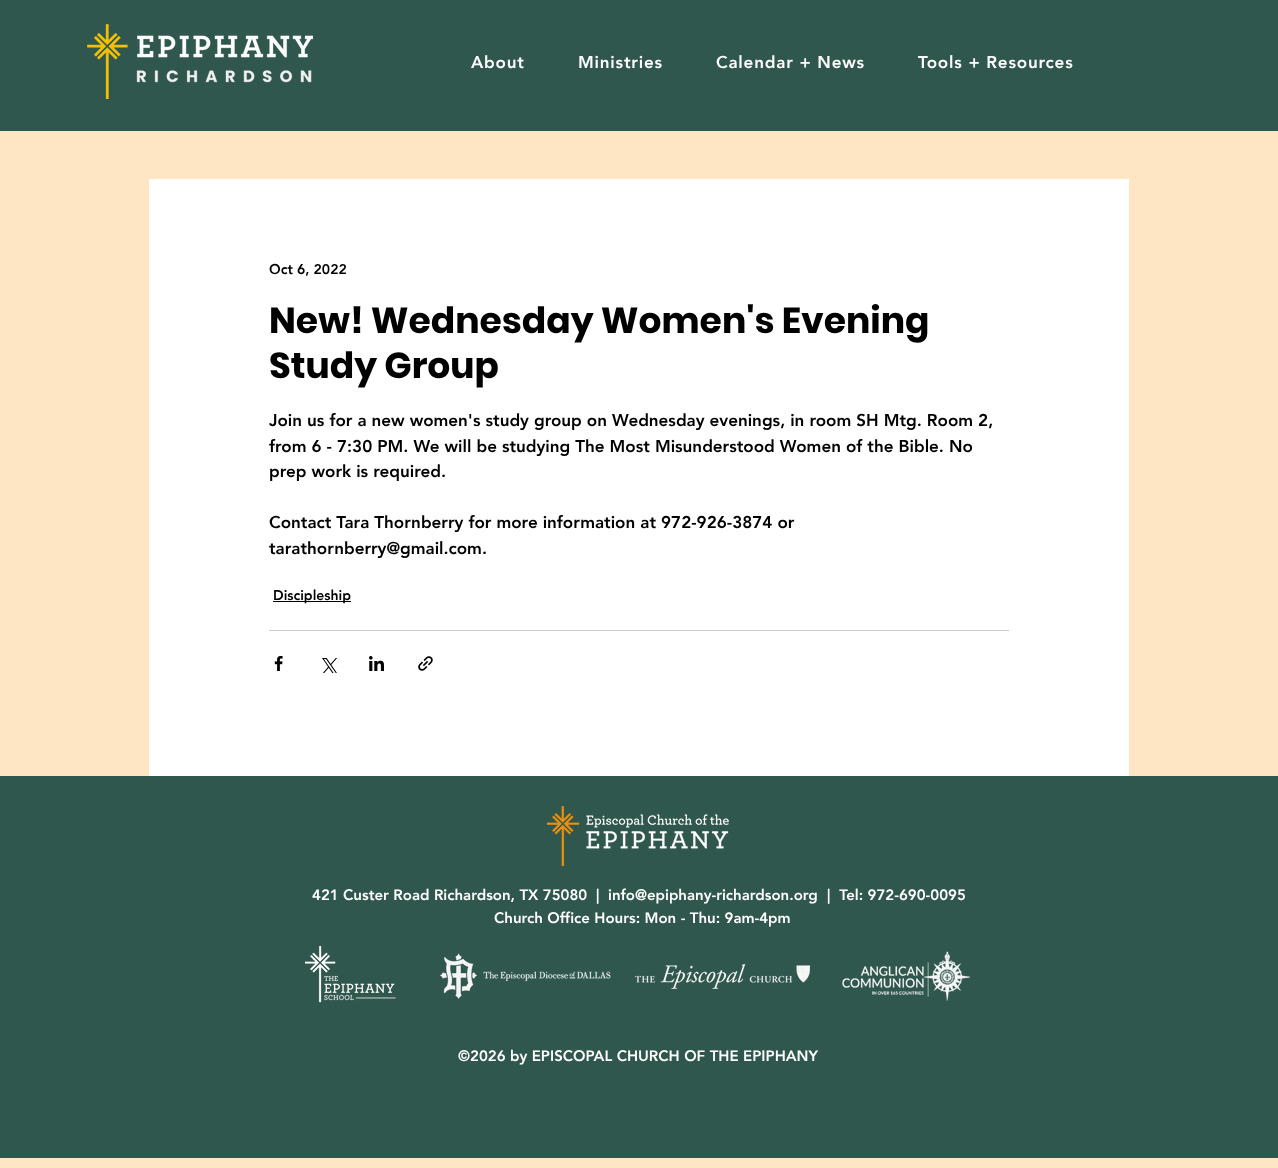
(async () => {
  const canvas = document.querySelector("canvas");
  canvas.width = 1278;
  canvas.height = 1168;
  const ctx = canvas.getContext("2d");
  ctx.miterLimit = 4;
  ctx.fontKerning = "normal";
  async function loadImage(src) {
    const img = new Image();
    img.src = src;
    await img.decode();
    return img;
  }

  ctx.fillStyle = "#fee6c4";
  ctx.fillRect(0, 0, 1278, 1168);
  ctx.fillStyle = "#30574e";
  ctx.fillRect(0, 0, 1278, 131);
  ctx.drawImage(await loadImage("img/1.png"), 87, 24, 226, 75);
  for (const [x, y, w, h, color] of [
    [149, 179, 980, 597, "#ffffff"],
    [273, 601, 78, 1, "#000000"],
    [269, 630, 740, 1, "#cccccc"],
  ]) {
    ctx.fillStyle = color;
    ctx.fillRect(x, y, w, h);
  }
  ctx.drawImage(await loadImage("img/2.png"), 274, 656, 9, 15);
  ctx.drawImage(await loadImage("img/3.png"), 322, 658, 15, 15);
  ctx.drawImage(await loadImage("img/4.png"), 369, 656, 15, 15);
  ctx.drawImage(await loadImage("img/5.png"), 418, 656, 15, 15);
  ctx.fillStyle = "#30574e";
  ctx.fillRect(0, 776, 1278, 382);
  ctx.drawImage(await loadImage("img/6.png"), 547, 806, 182, 60);
  ctx.drawImage(await loadImage("img/7.png"), 305, 946, 91, 57);
  ctx.drawImage(await loadImage("img/8.png"), 440, 953, 171, 46);
  ctx.drawImage(await loadImage("img/9.png"), 635, 964, 175, 25);
  ctx.drawImage(await loadImage("img/10.png"), 842, 951, 128, 50);
  ctx.letterSpacing = "0.8px";
  ctx.font = "900 17px 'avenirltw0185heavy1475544'";
  ctx.fillStyle = "#ffffff";
  for (const [text, x, y] of [
    ["About", 471, 68],
    ["Ministries", 578, 68],
    ["Calendar + News", 716, 68],
    ["Tools + Resources", 918, 68],
  ]) {
    ctx.fillText(text, x, y);
  }
  ctx.letterSpacing = "0px";
  ctx.font = "900 14px 'avenirltw0185heavy1475544'";
  ctx.fillStyle = "#000000";
  ctx.fillText("Oct 6, 2022", 269, 274);
  ctx.font = "bold 36px Poppins";
  ctx.fillText("New! Wednesday Women's Evening", 269, 333);
  ctx.fillText("Study Group", 269, 378);
  ctx.font = "900 17px 'avenirltw0185heavy1475544'";
  for (const [text, x, y] of [
    ["Join us for a new women's study group on Wednesday evenings, in room SH Mtg. Room 2,", 269, 426],
    ["from 6 - 7:30 PM. We will be studying The Most Misunderstood Women of the Bible. No", 269, 452],
    ["prep work is required.", 269, 477],
    ["Contact Tara Thornberry for more information at 972-926-3874 or", 269, 528],
    ["tarathornberry@gmail.com.", 269, 554],
  ]) {
    ctx.fillText(text, x, y);
  }
  ctx.font = "900 14px 'avenirltw0185heavy1475544'";
  ctx.fillText("Discipleship", 273, 600);
  ctx.font = "900 15px 'avenirltw0185heavy1475544'";
  ctx.fillStyle = "#ffffff";
  for (const [text, x, y] of [
    ["421 Custer Road Richardson, TX 75080  |", 312, 900],
    ["info@epiphany-richardson.org", 608, 900],
    ["|  Tel: 972-690-0095", 827, 900],
    ["Church Office Hours: Mon - Thu: 9am-4pm", 494, 923],
    ["©2026 by EPISCOPAL CHURCH OF THE EPIPHANY", 458, 1061],
  ]) {
    ctx.fillText(text, x, y);
  }
})();
